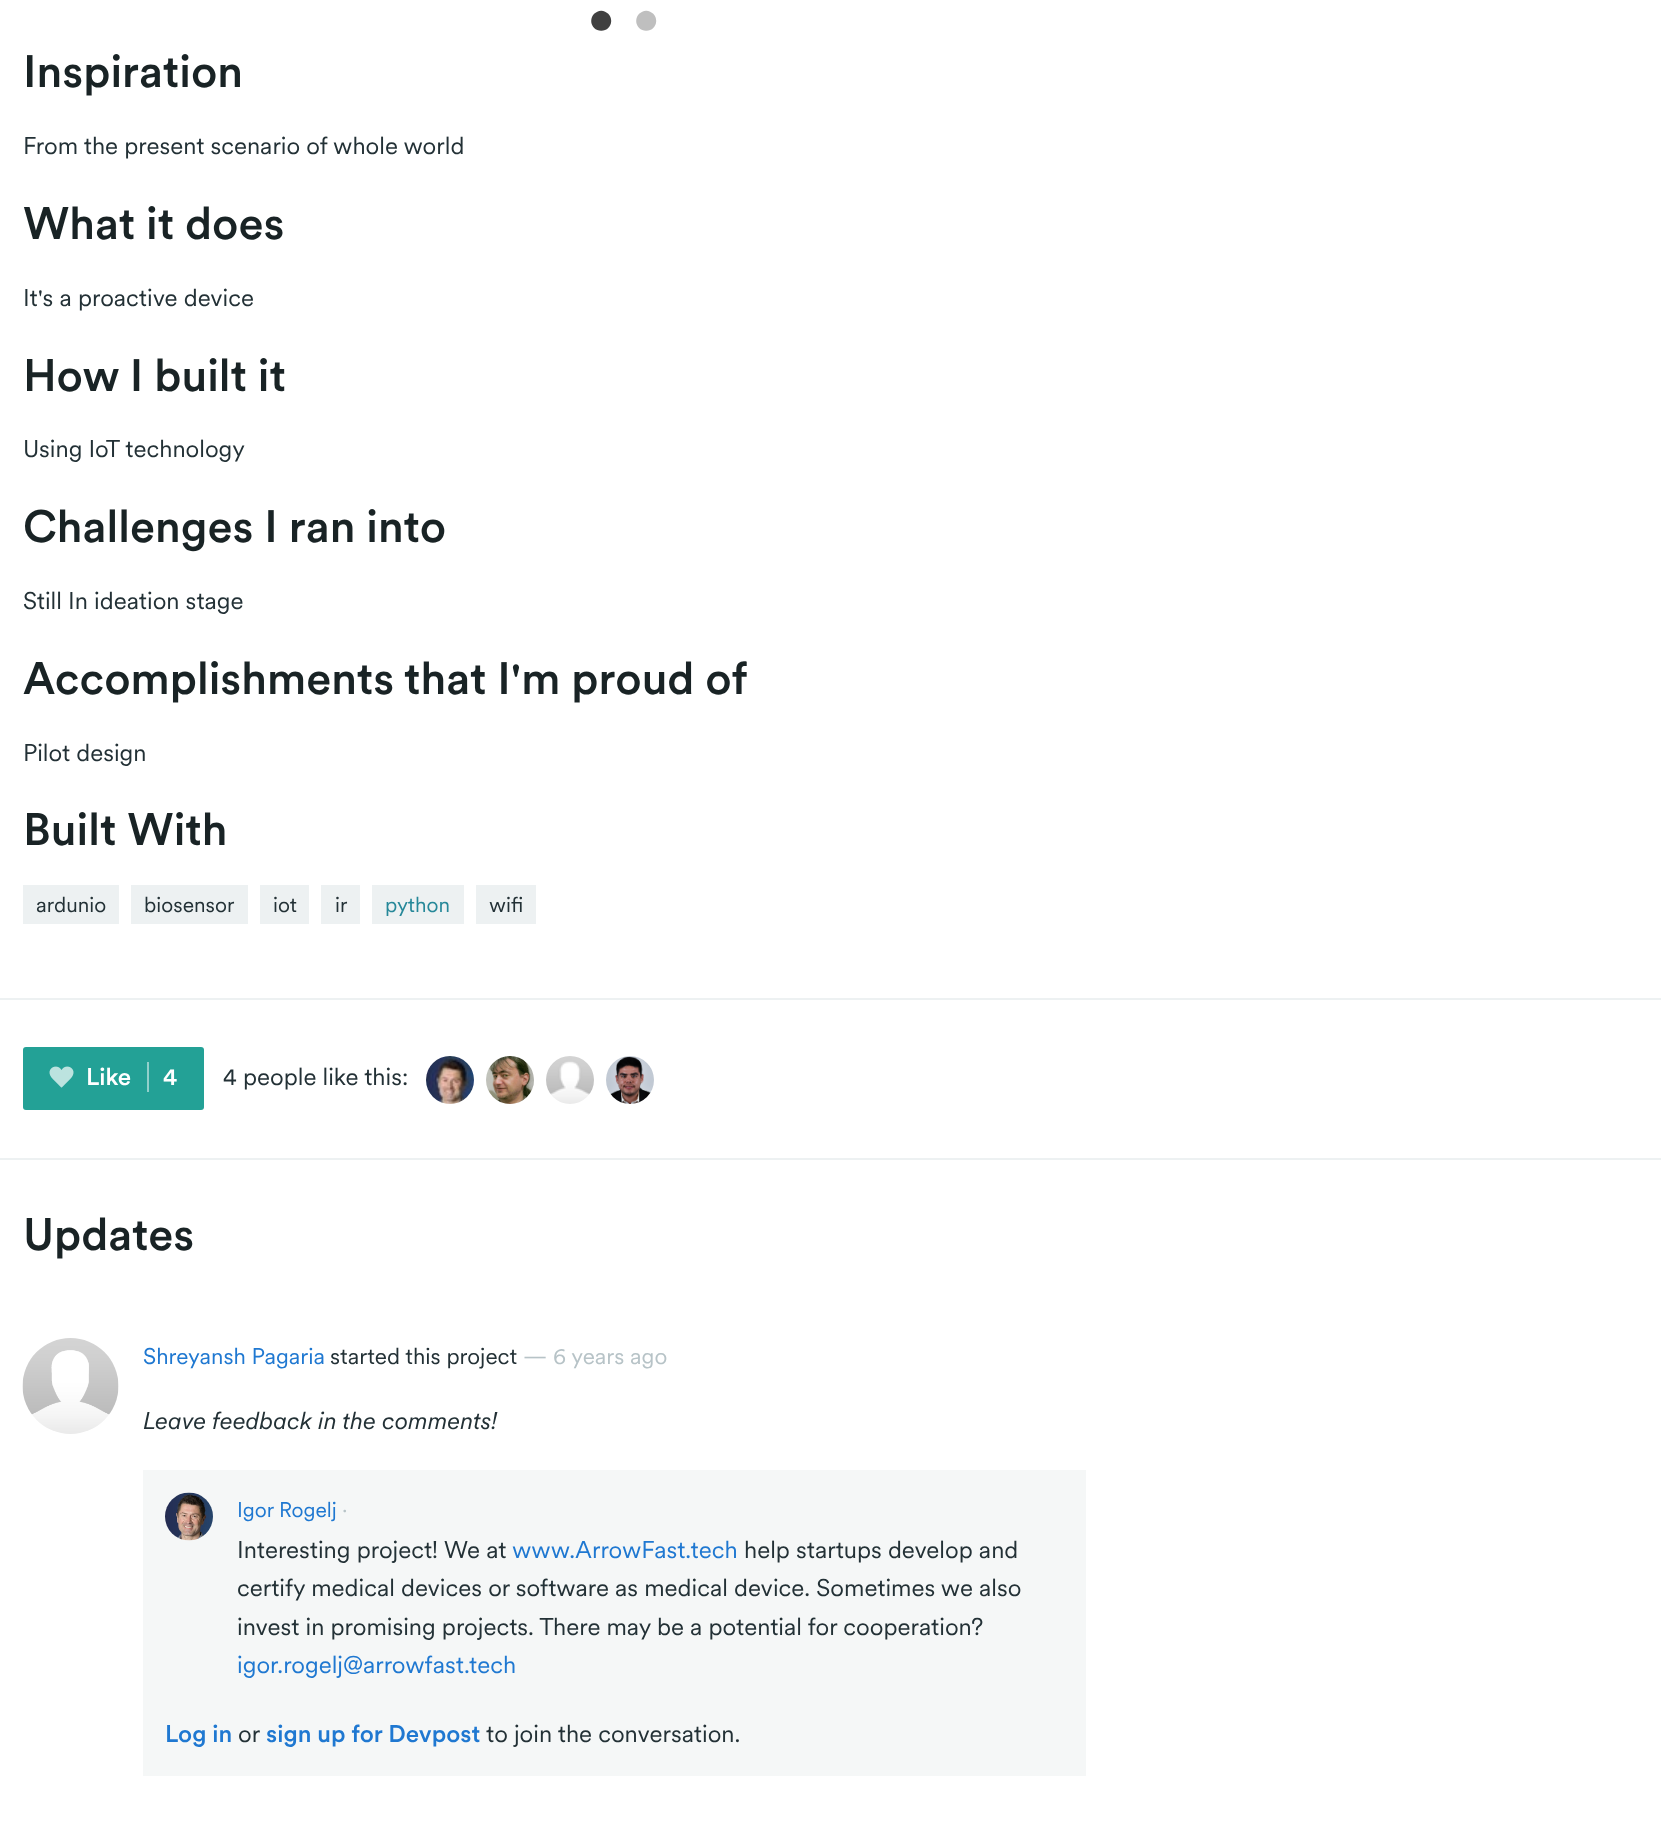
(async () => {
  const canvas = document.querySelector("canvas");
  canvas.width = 1661;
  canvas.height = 1836;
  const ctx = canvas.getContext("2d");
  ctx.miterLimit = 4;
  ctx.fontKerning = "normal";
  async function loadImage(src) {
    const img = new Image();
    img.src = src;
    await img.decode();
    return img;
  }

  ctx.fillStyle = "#ffffff";
  ctx.fillRect(0, 0, 1661, 1836);
  for (const [x, y, w, h, color] of [
    [23, 885, 96, 39, "#edf1f2"],
    [131, 885, 117, 39, "#edf1f2"],
    [260, 885, 49, 39, "#edf1f2"],
    [321, 885, 39, 39, "#edf1f2"],
    [372, 885, 92, 39, "#edf1f2"],
    [476, 885, 60, 39, "#edf1f2"],
    [0, 998, 1661, 2, "#edf1f2"],
    [0, 1158, 1661, 2, "#edf1f2"],
  ]) {
    ctx.fillStyle = color;
    ctx.fillRect(x, y, w, h);
  }
  ctx.fillStyle = "#23a196";
  ctx.beginPath();
  ctx.roundRect(23, 1047, 181, 63, 3);
  ctx.fill();
  ctx.drawImage(await loadImage("img/1.png"), 49, 1066, 25, 22);
  ctx.fillStyle = "#91d0cb";
  ctx.fillRect(147, 1062, 2, 30);
  ctx.drawImage(await loadImage("img/2.png"), 426, 1056, 48, 48);
  ctx.drawImage(await loadImage("img/3.png"), 486, 1056, 48, 48);
  ctx.drawImage(await loadImage("img/4.png"), 546, 1056, 48, 48);
  ctx.drawImage(await loadImage("img/5.png"), 606, 1056, 48, 48);
  ctx.drawImage(await loadImage("img/6.png"), 22, 1338, 97, 96);
  ctx.fillStyle = "#f5f7f7";
  ctx.fillRect(143, 1470, 943, 306);
  ctx.drawImage(await loadImage("img/7.png"), 165, 1492, 48, 49);
  ctx.font = "500 48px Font";
  ctx.fillStyle = "#404040";
  ctx.fillText("•", 588, 35);
  ctx.fillStyle = "#bfbfbf";
  ctx.fillText("•", 633, 35);
  ctx.font = "500 45px Font";
  ctx.fillStyle = "#192325";
  ctx.fillText("Inspiration", 23, 87);
  ctx.font = "24px Font";
  ctx.fillStyle = "#233136";
  ctx.fillText("From the present scenario of whole world", 23, 154);
  ctx.font = "500 45px Font";
  ctx.fillStyle = "#192325";
  ctx.fillText("What it does", 23, 239);
  ctx.font = "24px Font";
  ctx.fillStyle = "#233136";
  ctx.fillText("It's a proactive device", 23, 306);
  ctx.font = "500 45px Font";
  ctx.fillStyle = "#192325";
  ctx.fillText("How I built it", 23, 391);
  ctx.font = "24px Font";
  ctx.fillStyle = "#233136";
  ctx.fillText("Using IoT technology", 23, 457);
  ctx.font = "500 45px Font";
  ctx.fillStyle = "#192325";
  ctx.fillText("Challenges I ran into", 23, 542);
  ctx.font = "24px Font";
  ctx.fillStyle = "#233136";
  ctx.fillText("Still In ideation stage", 23, 609);
  ctx.font = "500 45px Font";
  ctx.fillStyle = "#192325";
  ctx.fillText("Accomplishments that I'm proud of", 23, 694);
  ctx.font = "24px Font";
  ctx.fillStyle = "#233136";
  ctx.fillText("Pilot design", 23, 761);
  ctx.font = "500 45px Font";
  ctx.fillStyle = "#192325";
  ctx.fillText("Built With", 23, 845);
  ctx.font = "21px Font";
  ctx.fillStyle = "#233136";
  for (const [text, x, y] of [
    ["ardunio", 36, 912],
    ["biosensor", 144, 912],
    ["iot", 273, 912],
    ["ir", 335, 912],
  ]) {
    ctx.fillText(text, x, y);
  }
  ctx.fillStyle = "#268899";
  ctx.fillText("python", 385, 912);
  ctx.fillStyle = "#233136";
  ctx.fillText("wifi", 489, 912);
  ctx.font = "500 24px Font";
  ctx.fillStyle = "#ffffff";
  ctx.fillText("Like", 86, 1085);
  ctx.fillText("4", 163, 1085);
  ctx.font = "24px Font";
  ctx.fillStyle = "#233136";
  ctx.fillText("4 people like this:", 223, 1085);
  ctx.font = "500 45px Font";
  ctx.fillStyle = "#192325";
  ctx.fillText("Updates", 23, 1250);
  ctx.font = "22.5px Font";
  ctx.fillStyle = "#1f78d1";
  ctx.fillText("Shreyansh Pagaria", 143, 1364);
  ctx.fillStyle = "#233136";
  ctx.fillText("started this project", 330, 1364);
  ctx.fillStyle = "#b7c3c7";
  ctx.fillText("— 6 years ago", 523, 1364);
  ctx.font = "italic 24px Font";
  ctx.fillStyle = "#233136";
  ctx.fillText("Leave feedback in the comments!", 143, 1429);
  ctx.font = "21px Font";
  ctx.fillStyle = "#1f78d1";
  ctx.fillText("Igor Rogelj", 237, 1517);
  ctx.fillStyle = "#b7c3c7";
  ctx.fillText("·", 342, 1517);
  ctx.font = "24px Font";
  ctx.fillStyle = "#233136";
  ctx.fillText("Interesting project! We at", 237, 1558);
  ctx.fillStyle = "#1f78d1";
  ctx.fillText("www.ArrowFast.tech", 512, 1558);
  ctx.fillStyle = "#233136";
  for (const [text, x, y] of [
    ["help startups develop and", 744, 1558],
    ["certify medical devices or software as medical device. Sometimes we also", 237, 1596],
    ["invest in promising projects. There may be a potential for cooperation?", 237, 1635],
  ]) {
    ctx.fillText(text, x, y);
  }
  ctx.fillStyle = "#1f78d1";
  ctx.fillText("igor.rogelj@arrowfast.tech", 237, 1673);
  ctx.font = "500 24px Font";
  ctx.fillText("Log in", 165, 1742);
  ctx.font = "24px Font";
  ctx.fillStyle = "#233136";
  ctx.fillText("or", 238, 1742);
  ctx.font = "500 24px Font";
  ctx.fillStyle = "#1f78d1";
  ctx.fillText("sign up for Devpost", 266, 1742);
  ctx.font = "24px Font";
  ctx.fillStyle = "#233136";
  ctx.fillText("to join the conversation.", 486, 1742);
})();
